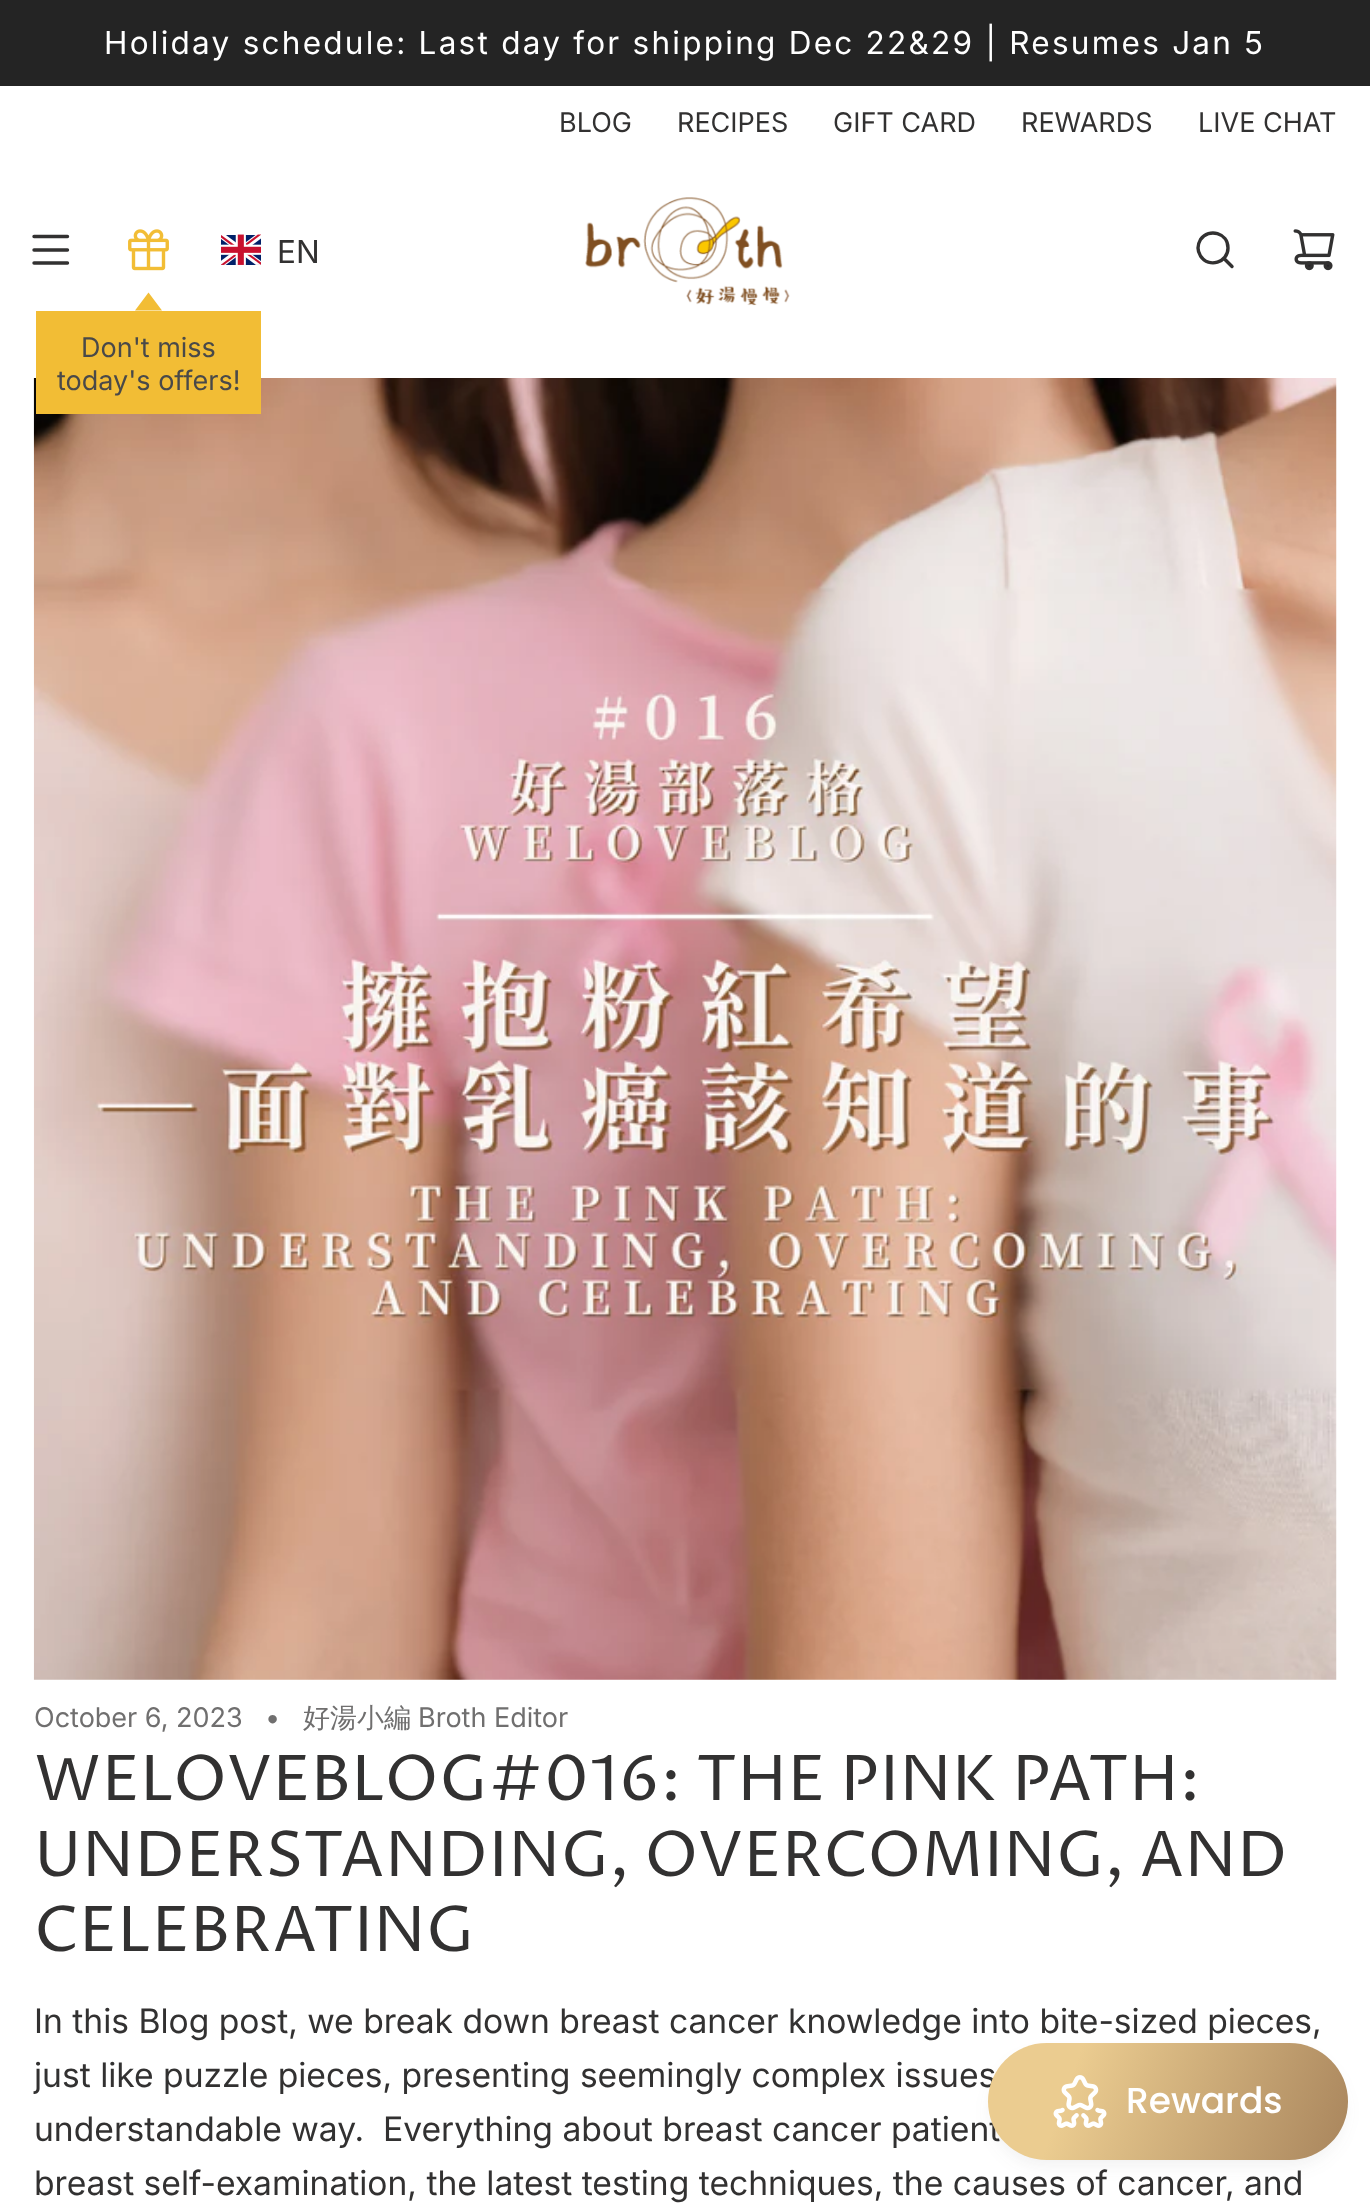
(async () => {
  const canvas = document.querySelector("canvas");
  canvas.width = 1370;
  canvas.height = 2203;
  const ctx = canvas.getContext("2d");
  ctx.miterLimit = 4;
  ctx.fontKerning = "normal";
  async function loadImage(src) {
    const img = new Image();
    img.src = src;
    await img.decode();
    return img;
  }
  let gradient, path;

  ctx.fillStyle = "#ffffff";
  ctx.fillRect(0, 0, 1370, 2203);
  ctx.fillStyle = "#242424";
  ctx.fillRect(0, 0, 1370, 86);
  path = new Path2D("M34 236.5H67.5M34 250H67.5M34 263H67.5");
  ctx.strokeStyle = "#323131";
  ctx.lineWidth = 3.4;
  ctx.lineCap = "round";
  ctx.lineJoin = "round";
  ctx.stroke(path);
  ctx.drawImage(await loadImage("img/1.png"), 221, 234, 40, 31);
  ctx.drawImage(await loadImage("img/2.png"), 128, 229, 41, 42);
  ctx.drawImage(await loadImage("img/5.png"), 33, 378, 1304, 1302);
  ctx.fillStyle = "#f2bd35";
  ctx.fillRect(36, 311, 225, 103);
  path = new Path2D("M162 310.5H135L148.5 292.5Z");
  ctx.fill(path);
  ctx.drawImage(await loadImage("img/3.png"), 585, 197, 205, 109);
  path = new Path2D("M1224.5 259L1232 266.5M1198 248C1198 251 1199 253.5 1200.5 256C1209 268.5 1228 262.5 1228 248C1228 233 1209 227.5 1200.5 239.5C1199 242 1198 245 1198 248Z");
  ctx.stroke(path);
  ctx.drawImage(await loadImage("img/4.png"), 1293, 229, 42, 42);
  ctx.fillStyle = "rgba(68, 68, 68, 0.08)";
  ctx.filter = "blur(9px)";
  ctx.beginPath();
  ctx.roundRect(992, 2057, 351, 108, 54);
  ctx.fill();
  ctx.filter = "none";
  ctx.letterSpacing = "2.25px";
  ctx.font = "31.5px 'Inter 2'";
  ctx.fillStyle = "#ffffff";
  ctx.fillText("Holiday schedule: Last day for shipping Dec 22&29 | Resumes Jan 5", 104, 54);
  ctx.letterSpacing = "0px";
  ctx.font = "27px 'Inter 2'";
  ctx.fillStyle = "#323131";
  for (const [text, x, y] of [
    ["BLOG", 559, 132],
    ["RECIPES", 677, 132],
    ["GIFT CARD", 833, 132],
    ["REWARDS", 1021, 132],
    ["LIVE CHAT", 1198, 132],
  ]) {
    ctx.fillText(text, x, y);
  }
  ctx.font = "31.5px 'Inter 2'";
  ctx.fillText("EN", 277, 263);
  ctx.font = "27px 'Inter 2'";
  ctx.fillStyle = "#494949";
  ctx.fillText("Don't miss", 81, 357);
  ctx.fillText("today's offers!", 57, 390);
  ctx.fillStyle = "#706f6f";
  ctx.fillText("October 6, 2023", 34, 1727);
  ctx.fillText("•", 265, 1727);
  ctx.font = "500 27px WenQuanYi Zen Hei";
  ctx.fillText("好湯小編", 303, 1727);
  ctx.font = "27px 'Inter 2'";
  ctx.fillText("Broth Editor", 418, 1727);
  ctx.letterSpacing = "0.6px";
  ctx.font = "63px Proza Libre";
  ctx.fillStyle = "#323131";
  for (const [text, x, y] of [
    ["WELOVEBLOG#016: THE PINK PATH:", 34, 1800],
    ["UNDERSTANDING, OVERCOMING, AND", 34, 1876],
    ["CELEBRATING", 34, 1951],
  ]) {
    ctx.fillText(text, x, y);
  }
  ctx.letterSpacing = "0px";
  ctx.font = "33.75px Inter";
  for (const [text, x, y] of [
    ["In this Blog post, we break down breast cancer knowledge into bite-sized pieces,", 34, 2033],
    ["just like puzzle pieces, presenting seemingly complex issues", 34, 2087],
    ["understandable way.  Everything about breast cancer patient", 34, 2141],
    ["breast self-examination, the latest testing techniques, the causes of cancer, and", 34, 2195],
  ]) {
    ctx.fillText(text, x, y);
  }
  gradient = ctx.createLinearGradient(989, 2038, 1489, 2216);
  gradient.addColorStop(0.17, "#ebcc90");
  gradient.addColorStop(1, "#866042");
  ctx.fillStyle = gradient;
  ctx.beginPath();
  ctx.roundRect(988, 2043, 360, 117, 58.5);
  ctx.fill();
  ctx.drawImage(await loadImage("img/6.png"), 1053, 2075, 54, 53);
  ctx.font = "500 36px Poppins";
  ctx.fillStyle = "#ffffff";
  ctx.fillText("Rewards", 1126, 2113);
})();
